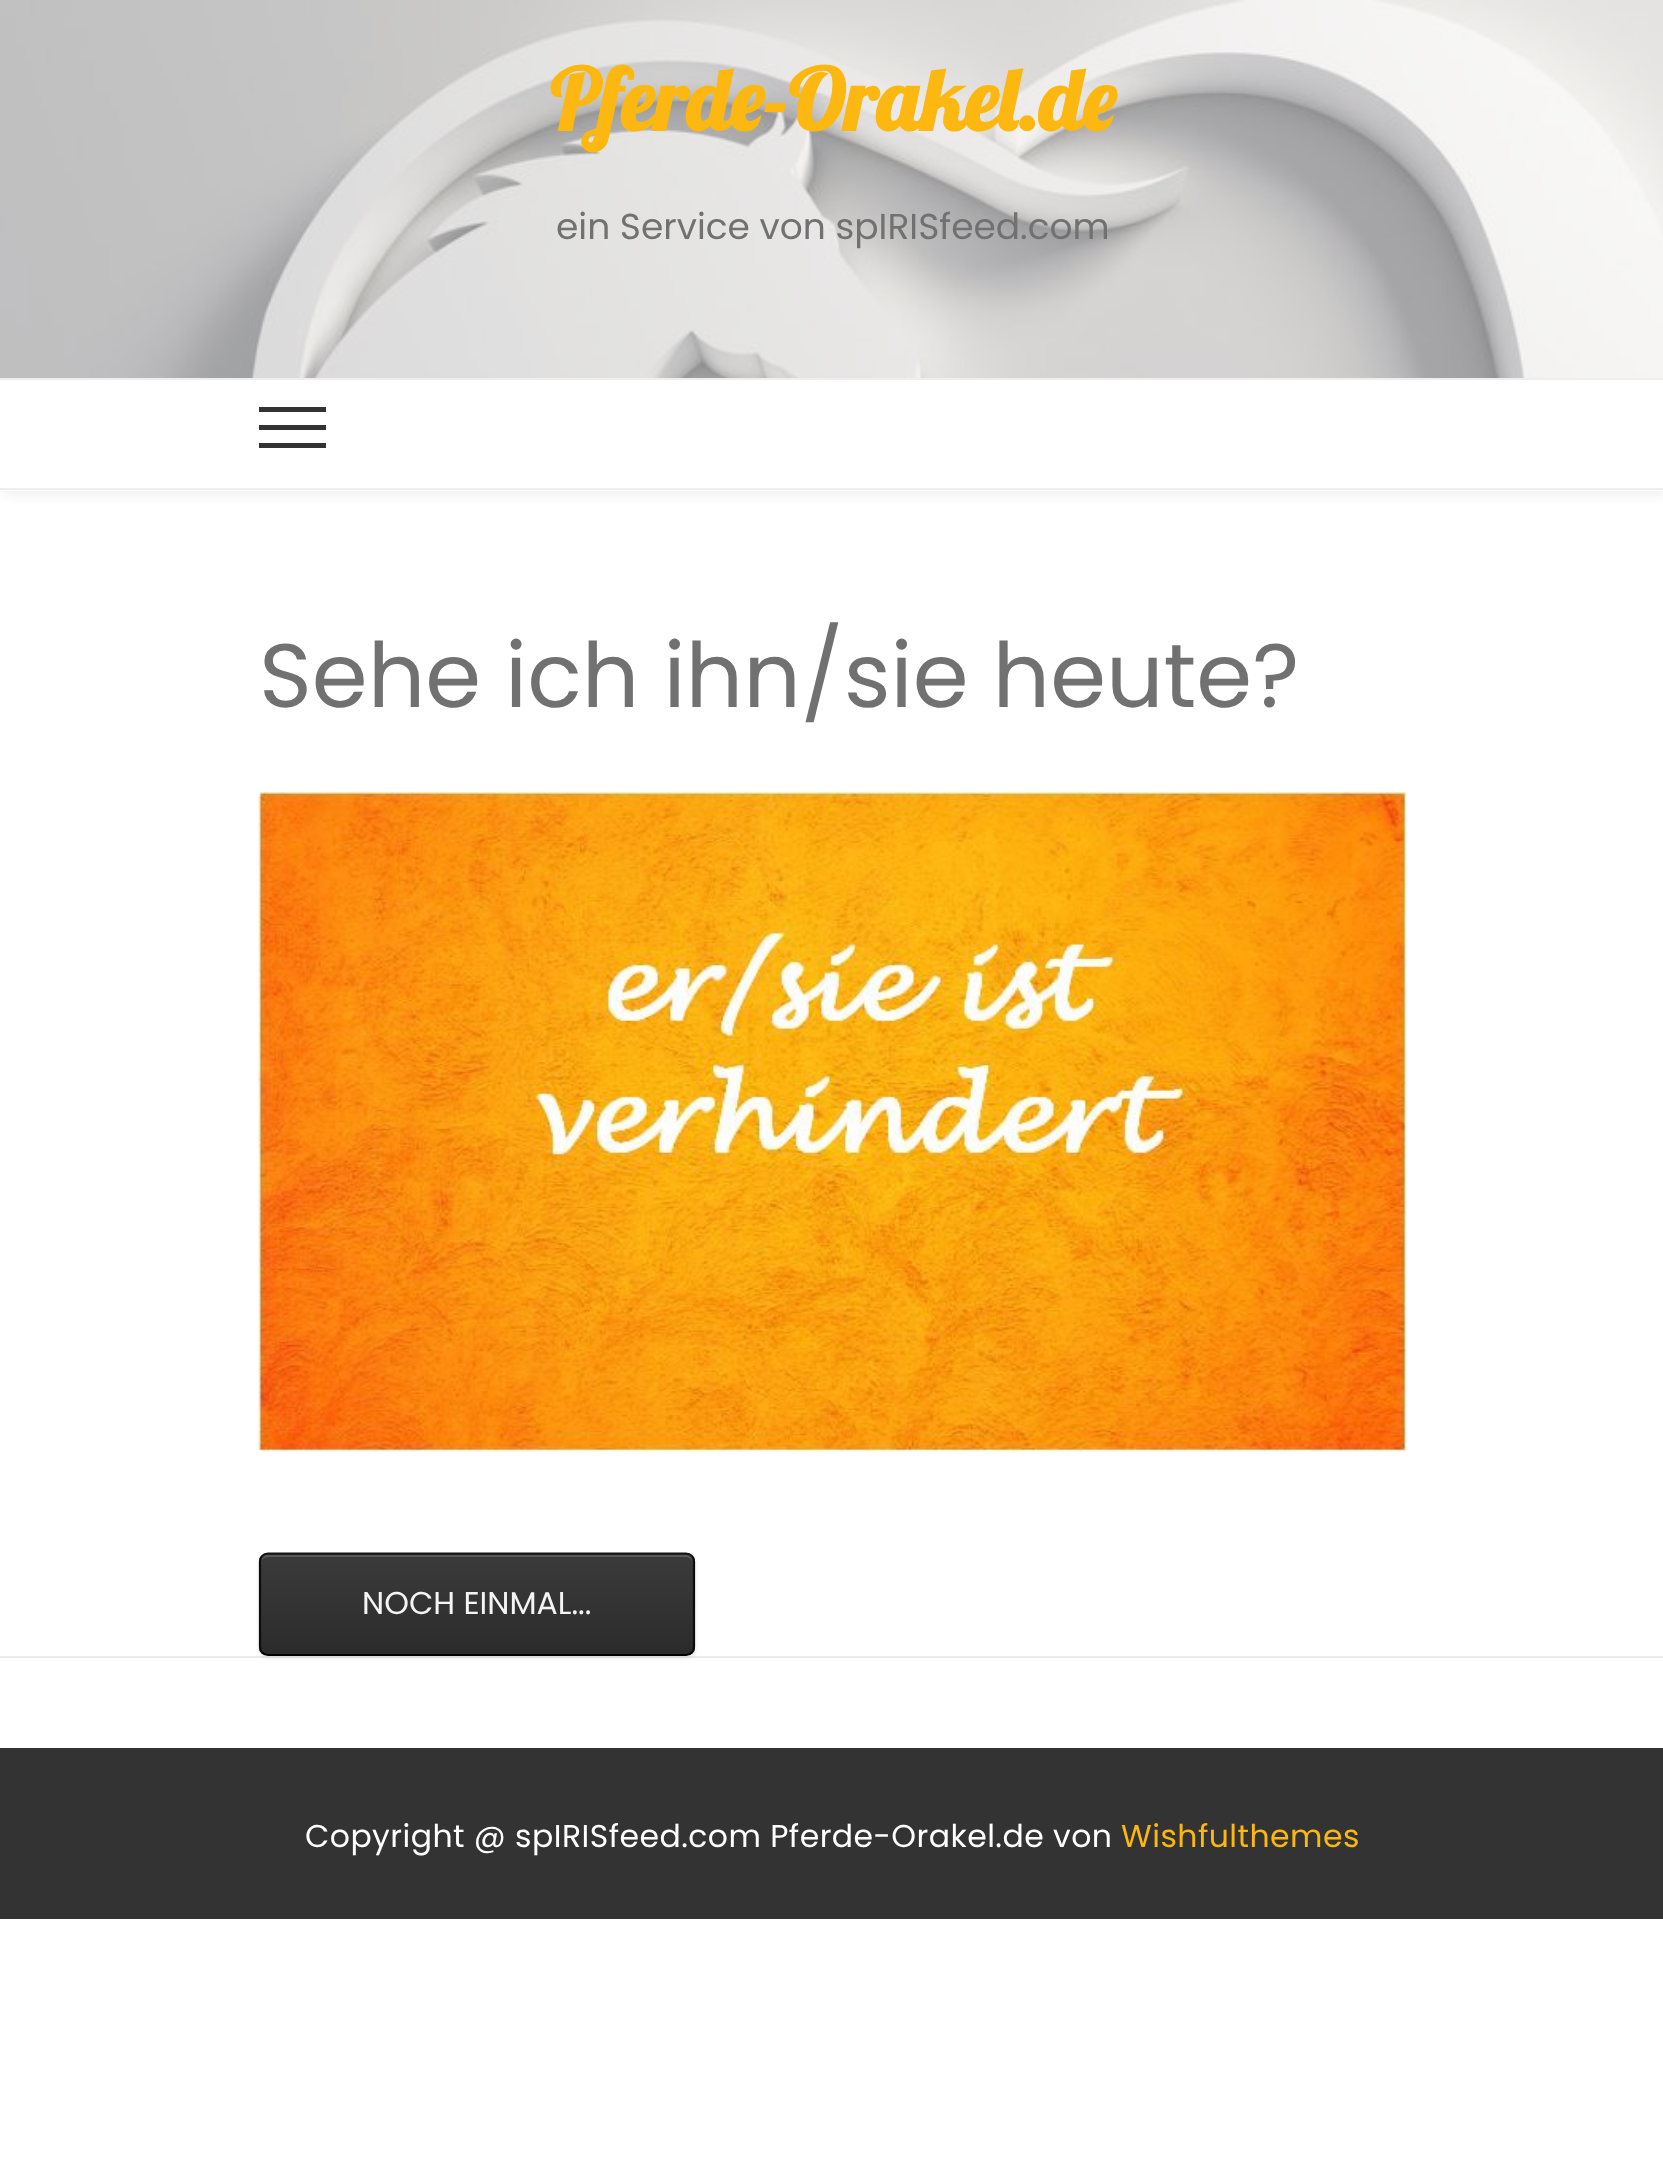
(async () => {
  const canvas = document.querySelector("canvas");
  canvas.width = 1663;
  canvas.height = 2163;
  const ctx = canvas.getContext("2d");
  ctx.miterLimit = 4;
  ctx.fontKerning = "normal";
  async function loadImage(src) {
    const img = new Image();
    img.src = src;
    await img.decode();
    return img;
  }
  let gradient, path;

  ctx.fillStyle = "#ffffff";
  ctx.fillRect(0, 0, 1663, 2163);
  ctx.fillStyle = "rgba(235, 235, 235, 0.75)";
  ctx.filter = "blur(5.5px)";
  ctx.beginPath();
  ctx.rect(2, 5, 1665, 490);
  ctx.fill();
  ctx.filter = "none";
  ctx.fillStyle = "#ffffff";
  ctx.fillRect(0, 490, 1663, 1);
  ctx.drawImage(await loadImage("img/1.png"), 0, 0, 1663, 378);
  for (const [x, y, w, h, color] of [
    [0, 488, 1663, 2, "#eeeeee"],
    [0, 0, 1663, 378, "rgba(255, 255, 255, 0.5)"],
    [0, 380, 1663, 108, "#ffffff"],
    [0, 378, 1663, 2, "#eeeeee"],
    [259, 407, 67, 5, "#333333"],
    [259, 425, 67, 5, "#333333"],
    [259, 443, 67, 5, "#333333"],
  ]) {
    ctx.fillStyle = color;
    ctx.fillRect(x, y, w, h);
  }
  ctx.drawImage(await loadImage("img/2.png"), 258, 792, 1149, 660);
  ctx.fillStyle = "#ebebeb";
  ctx.fillRect(0, 1656, 1663, 2);
  ctx.fillStyle = "rgba(0, 0, 0, 0.1)";
  ctx.filter = "blur(2px)";
  ctx.beginPath();
  ctx.roundRect(259, 1555, 436, 103, 9);
  ctx.fill();
  ctx.filter = "none";
  ctx.save();
  ctx.beginPath();
  ctx.roundRect(259, 1553, 436, 103, 9);
  ctx.clip();
  gradient = ctx.createLinearGradient(261, 1555, 261, 1456);
  gradient.addColorStop(0, "#2b2b2b");
  gradient.addColorStop(1, "#3b3b3b");
  ctx.fillStyle = gradient;
  ctx.fillRect(259, 1553, 436, 2);
  gradient = ctx.createLinearGradient(261, 1654, 261, 1555);
  gradient.addColorStop(0, "#2b2b2b");
  gradient.addColorStop(1, "#3b3b3b");
  ctx.fillStyle = gradient;
  ctx.fillRect(259, 1555, 436, 99);
  ctx.restore();
  ctx.fillStyle = "#5a5a5a";
  path = new Path2D("M268 1557H686C690 1557 693 1560 693 1564C693 1560 691 1555 686 1555H268C263 1555 261 1560 261 1564C261 1560 264 1557 268 1557Z");
  ctx.fill(path);
  path = new Path2D("M262 1556C263.5 1554.5 265.5 1553.5 268 1553.5H686C688.5 1553.5 690.5 1554.5 692 1556");
  ctx.strokeStyle = "#161616";
  ctx.lineWidth = 2.2;
  ctx.stroke(path);
  path = new Path2D("M692 1556C693.5 1557.5 694 1559.5 694 1561.5V1647C694 1649 693.5 1651 692 1652.5");
  ctx.strokeStyle = "#0c0c0c";
  ctx.stroke(path);
  path = new Path2D("M692 1652.5C690.5 1654 688.5 1655 686 1655H268C265.5 1655 263.5 1654 262 1652.5");
  ctx.strokeStyle = "#000000";
  ctx.stroke(path);
  path = new Path2D("M262 1652.5C260.5 1651 260 1649 260 1647V1561.5C260 1559.5 260.5 1557.5 262 1556");
  ctx.strokeStyle = "#0c0c0c";
  ctx.stroke(path);
  ctx.fillStyle = "#333333";
  ctx.fillRect(0, 1748, 1663, 171);
  ctx.font = "bold 85.5px Lobster";
  ctx.fillStyle = "#fcb811";
  ctx.fillText("Pferde-Orakel.de", 550, 131);
  ctx.font = "36px Poppins";
  ctx.fillStyle = "#717171";
  ctx.fillText("ein Service von spIRISfeed.com", 556, 239);
  ctx.font = "90px Poppins";
  ctx.fillText("Sehe ich ihn/sie heute?", 259, 707);
  ctx.font = "31.5px Poppins";
  ctx.fillStyle = "#f4f4f4";
  ctx.fillText("NOCH EINMAL...", 362, 1614);
  ctx.letterSpacing = "0.45px";
  ctx.fillStyle = "#ffffff";
  ctx.fillText("Copyright @ spIRISfeed.com Pferde-Orakel.de von", 305, 1847);
  ctx.fillStyle = "#fcb811";
  ctx.fillText("Wishfulthemes", 1121, 1847);
})();
